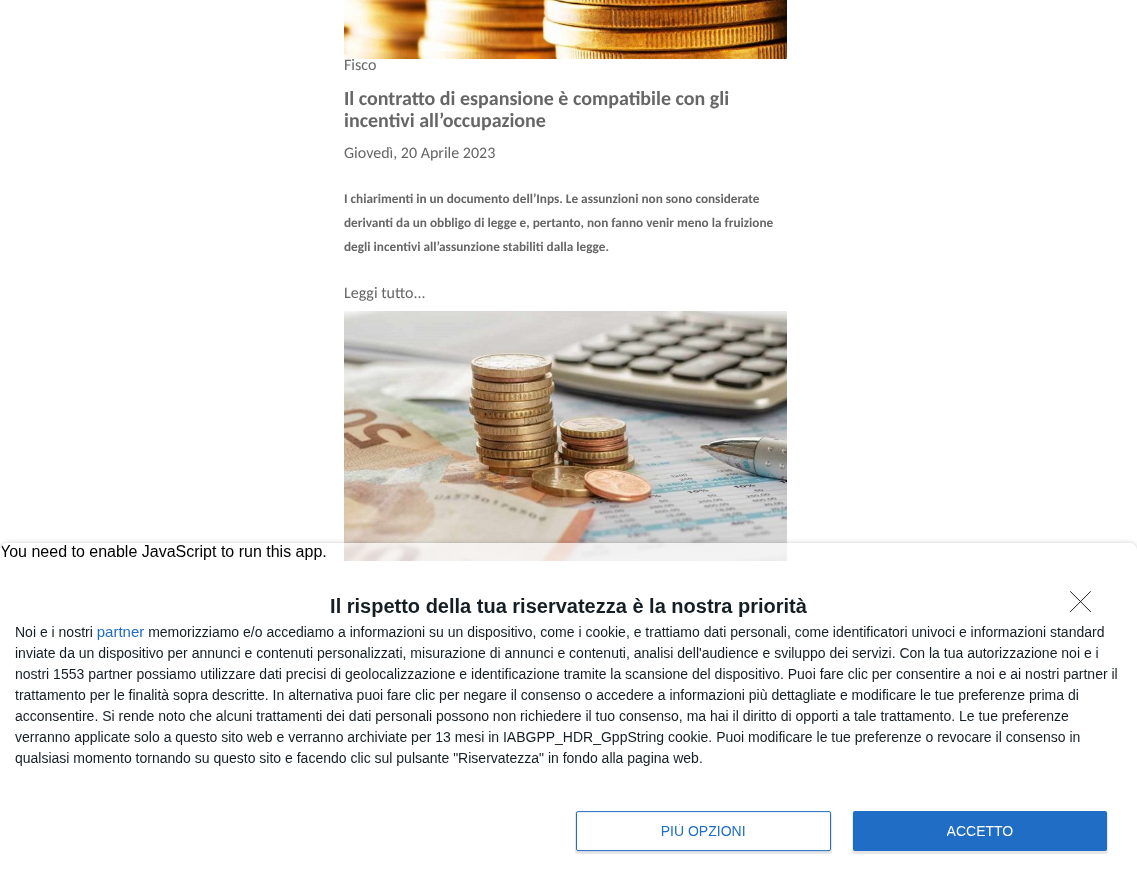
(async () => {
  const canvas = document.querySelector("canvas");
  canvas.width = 1137;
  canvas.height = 876;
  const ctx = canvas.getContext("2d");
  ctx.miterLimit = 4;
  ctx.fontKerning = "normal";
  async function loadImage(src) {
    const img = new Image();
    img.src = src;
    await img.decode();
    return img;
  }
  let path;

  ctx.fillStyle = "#ffffff";
  ctx.fillRect(0, 0, 1137, 876);
  ctx.drawImage(await loadImage("img/1.png"), 344, 0, 443, 59);
  ctx.drawImage(await loadImage("img/2.png"), 344, 311, 443, 250);
  ctx.save();
  path = new Path2D("M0 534H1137V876H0ZM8 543H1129C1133.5 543 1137 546.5 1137 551V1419H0V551C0 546.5 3.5 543 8 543Z");
  ctx.clip(path, "evenodd");
  ctx.fillStyle = "rgba(0, 0, 0, 0.2)";
  ctx.filter = "blur(2.5px)";
  ctx.beginPath();
  ctx.roundRect(0, 543, 1137, 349, 8);
  ctx.fill();
  ctx.filter = "none";
  ctx.restore();
  ctx.fillStyle = "rgba(255, 255, 255, 0.7)";
  path = new Path2D("M8 543H1129C1133.5 543 1137 546.5 1137 551V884H0V551C0 546.5 3.5 543 8 543Z");
  ctx.fill(path);
  ctx.fillStyle = "#efefef";
  ctx.beginPath();
  ctx.roundRect(0, 543, 1, 1, [8, 0, 0, 0]);
  ctx.fill();
  ctx.drawImage(await loadImage("img/3.png"), 1, 545, 1116, 331);
  ctx.font = "16px Carlito";
  ctx.fillStyle = "#666666";
  ctx.fillText("Fisco", 344, 70);
  ctx.font = "bold 20px Carlito";
  ctx.fillText("Il contratto di espansione è compatibile con gli", 344, 105);
  ctx.fillText("incentivi all’occupazione", 344, 127);
  ctx.font = "16px Carlito";
  ctx.fillText("Giovedì, 20 Aprile 2023", 344, 158);
  ctx.font = "bold 13.25px Carlito";
  for (const [text, x, y] of [
    ["I chiarimenti in un documento dell’Inps. Le assunzioni non sono considerate", 344, 203],
    ["derivanti da un obbligo di legge e, pertanto, non fanno venir meno la fruizione", 344, 227],
    ["degli incentivi all’assunzione stabiliti dalla legge.", 344, 251],
  ]) {
    ctx.fillText(text, x, y);
  }
  ctx.font = "16px Carlito";
  ctx.fillText("Leggi tutto...", 344, 298);
})();
